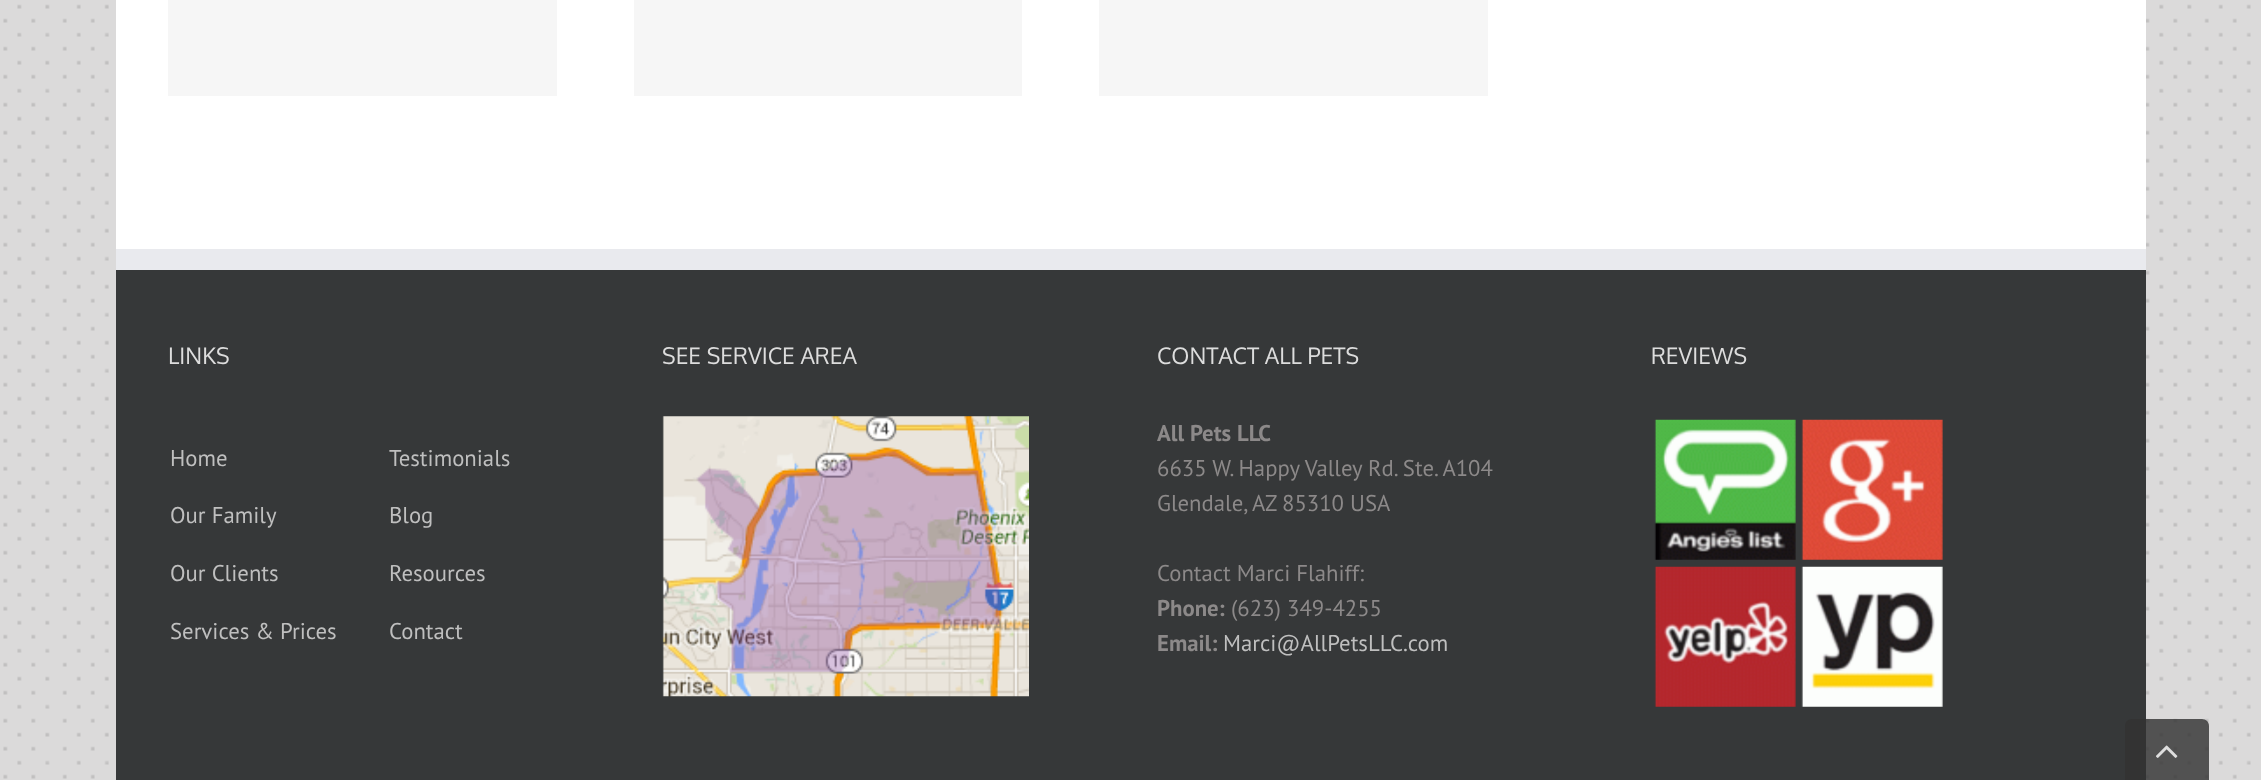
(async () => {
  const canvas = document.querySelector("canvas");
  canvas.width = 2261;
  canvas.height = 780;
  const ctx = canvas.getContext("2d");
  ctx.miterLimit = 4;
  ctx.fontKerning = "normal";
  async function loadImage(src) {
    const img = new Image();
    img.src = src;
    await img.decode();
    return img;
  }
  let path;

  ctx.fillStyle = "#ffffff";
  ctx.fillRect(0, 0, 2261, 780);
  ctx.drawImage(await loadImage("img/1.png"), 0, 0, 2261, 780);
  for (const [x, y, w, h, color] of [
    [116, 0, 2030, 249, "#ffffff"],
    [168, 0, 389, 96, "#f6f6f6"],
    [634, 0, 388, 96, "#f6f6f6"],
    [1099, 0, 389, 96, "#f6f6f6"],
    [116, 270, 2030, 510, "#363839"],
    [116, 249, 2030, 21, "#e9eaee"],
  ]) {
    ctx.fillStyle = color;
    ctx.fillRect(x, y, w, h);
  }
  ctx.drawImage(await loadImage("img/2.png"), 662, 416, 367, 281);
  ctx.drawImage(await loadImage("img/3.png"), 1654, 419, 142, 141);
  ctx.drawImage(await loadImage("img/4.png"), 1801, 419, 142, 141);
  ctx.drawImage(await loadImage("img/5.png"), 1654, 566, 142, 141);
  ctx.drawImage(await loadImage("img/6.png"), 1801, 566, 142, 141);
  ctx.fillStyle = "rgba(51, 51, 51, 0.81)";
  path = new Path2D("M2132 719H2202C2206 719 2209 722 2209 726V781H2125V726C2125 722 2128 719 2132 719Z");
  ctx.fill(path);
  ctx.drawImage(await loadImage("img/7.png"), 2156, 745, 22, 13);
  ctx.font = "22.75px Oxygen";
  ctx.fillStyle = "#dddddd";
  ctx.fillText("LINKS", 168, 364);
  ctx.font = "22.75px PT Sans";
  ctx.fillStyle = "#bfbfbf";
  for (const [text, x, y] of [
    ["Home", 170, 466],
    ["Our Family", 170, 523],
    ["Our Clients", 170, 581],
    ["Services & Prices", 170, 639],
    ["Testimonials", 389, 466],
    ["Blog", 389, 523],
    ["Resources", 389, 581],
    ["Contact", 389, 639],
  ]) {
    ctx.fillText(text, x, y);
  }
  ctx.font = "22.75px Oxygen";
  ctx.fillStyle = "#dddddd";
  ctx.fillText("SEE SERVICE AREA", 662, 364);
  ctx.fillText("CONTACT ALL PETS", 1157, 364);
  ctx.font = "bold 22.75px PT Sans";
  ctx.fillStyle = "#8c8989";
  ctx.fillText("All Pets LLC", 1157, 441);
  ctx.font = "22.75px PT Sans";
  for (const [text, x, y] of [
    ["6635 W. Happy Valley Rd. Ste. A104", 1157, 476],
    ["Glendale,", 1157, 511],
    ["AZ", 1252, 511],
    ["85310 USA", 1282, 511],
    ["Contact Marci Flahiff:", 1157, 581],
  ]) {
    ctx.fillText(text, x, y);
  }
  ctx.font = "bold 22.75px PT Sans";
  ctx.fillText("Phone:", 1157, 616);
  ctx.font = "22.75px PT Sans";
  ctx.fillText("(623) 349-4255", 1231, 616);
  ctx.font = "bold 22.75px PT Sans";
  ctx.fillText("Email:", 1157, 651);
  ctx.font = "22.75px PT Sans";
  ctx.fillStyle = "#bfbfbf";
  ctx.fillText("Marci@AllPetsLLC.com", 1223, 651);
  ctx.font = "22.75px Oxygen";
  ctx.fillStyle = "#dddddd";
  ctx.fillText("REVIEWS", 1651, 364);
})();
